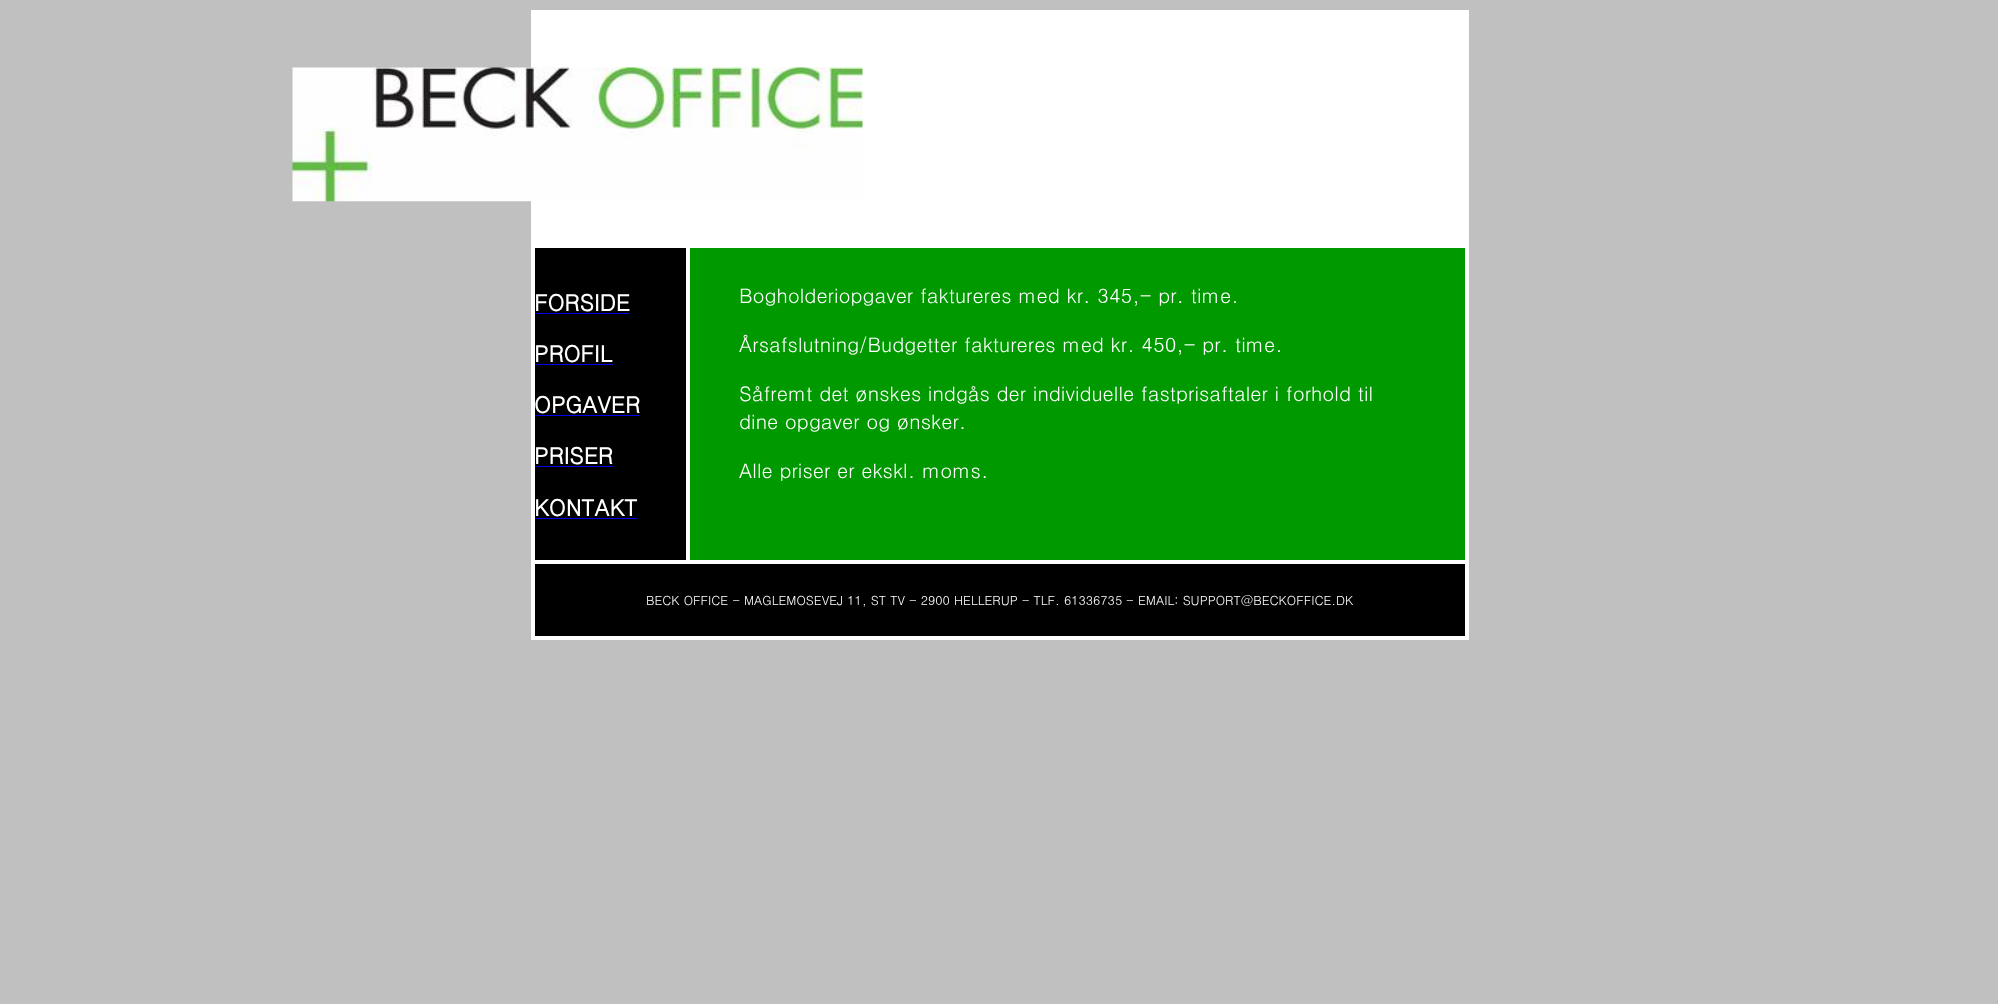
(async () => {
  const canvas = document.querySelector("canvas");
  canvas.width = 1998;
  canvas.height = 1004;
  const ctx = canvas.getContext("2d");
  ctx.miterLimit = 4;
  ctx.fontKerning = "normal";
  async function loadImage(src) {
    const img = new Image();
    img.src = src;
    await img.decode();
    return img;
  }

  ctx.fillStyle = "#c0c0c0";
  ctx.fillRect(0, 0, 1998, 1004);
  ctx.fillStyle = "#ffffff";
  ctx.fillRect(531, 10, 938, 4);
  ctx.fillRect(531, 14, 938, 234);
  ctx.drawImage(await loadImage("img/1.png"), 292, 67, 571, 135);
  for (const [x, y, w, h, color] of [
    [531, 248, 4, 312, "#ffffff"],
    [535, 248, 151, 312, "#000000"],
    [535, 313, 95, 1, "#0000ee"],
    [535, 364, 78, 1, "#0000ee"],
    [535, 415, 105, 1, "#0000ee"],
    [535, 466, 79, 1, "#0000ee"],
    [535, 518, 103, 1, "#0000ee"],
    [686, 248, 4, 312, "#ffffff"],
    [690, 248, 775, 312, "#009900"],
    [1465, 248, 4, 312, "#ffffff"],
    [531, 560, 938, 4, "#ffffff"],
    [531, 564, 4, 72, "#ffffff"],
    [535, 564, 930, 72, "#000000"],
    [1465, 564, 4, 72, "#ffffff"],
    [531, 636, 938, 4, "#ffffff"],
  ]) {
    ctx.fillStyle = color;
    ctx.fillRect(x, y, w, h);
  }
  ctx.font = "bold 22.5px Dotum";
  for (const [text, x, y] of [
    ["FORSIDE", 534, 311],
    ["PROFIL", 534, 362],
    ["OPGAVER", 534, 413],
    ["PRISER", 534, 464],
    ["KONTAKT", 534, 516],
  ]) {
    ctx.fillText(text, x, y);
  }
  ctx.font = "20px Dotum";
  for (const [text, x, y] of [
    ["Bogholderiopgaver faktureres med kr. 345,- pr. time.", 739, 303],
    ["Årsafslutning/Budgetter faktureres med kr. 450,- pr. time.", 739, 352],
    ["Såfremt det ønskes indgås der individuelle fastprisaftaler i forhold til", 739, 401],
    ["dine opgaver og ønsker.", 739, 429],
    ["Alle priser er ekskl. moms.", 739, 478],
  ]) {
    ctx.fillText(text, x, y);
  }
  ctx.font = "12.5px Dotum";
  ctx.fillText("BECK OFFICE - MAGLEMOSEVEJ 11, ST TV - 2900 HELLERUP - TLF. 61336735 - EMAIL: SUPPORT@BECKOFFICE.DK", 646, 605);
})();
